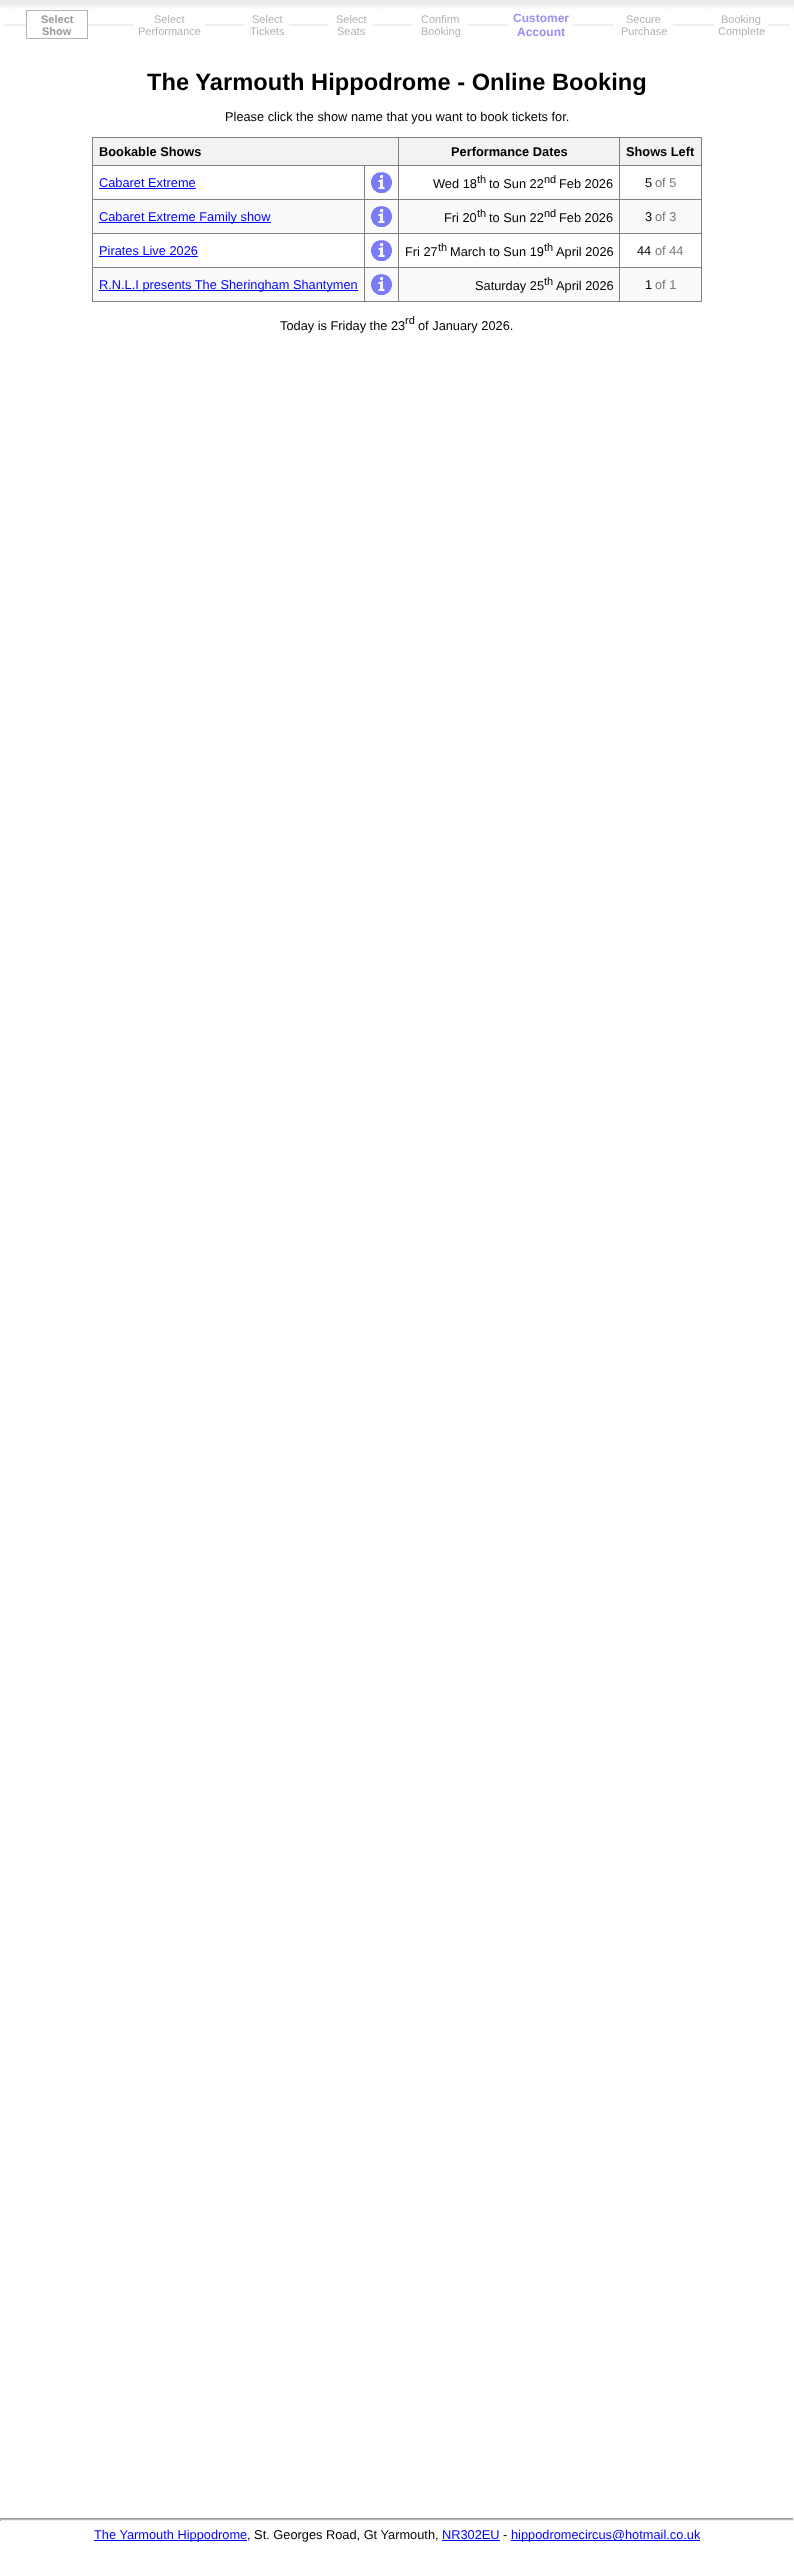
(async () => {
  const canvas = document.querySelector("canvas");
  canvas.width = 794;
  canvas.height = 2564;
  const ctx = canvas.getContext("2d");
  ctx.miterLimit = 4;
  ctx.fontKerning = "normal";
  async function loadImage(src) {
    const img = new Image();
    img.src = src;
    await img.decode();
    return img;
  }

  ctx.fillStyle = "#ffffff";
  ctx.fillRect(0, 0, 794, 2564);
  ctx.drawImage(await loadImage("img/1.png"), 0, 0, 794, 9);
  for (const [x, y, w, h, color] of [
    [4, 24, 22, 2, "#efefef"],
    [26, 10, 62, 1, "#b3b3b3"],
    [87, 24, 47, 2, "#efefef"],
    [87, 10, 1, 29, "#b3b3b3"],
    [26, 38, 62, 1, "#b3b3b3"],
    [26, 10, 1, 29, "#b3b3b3"],
    [205, 24, 40, 2, "#efefef"],
    [289, 24, 40, 2, "#efefef"],
    [373, 24, 40, 2, "#efefef"],
    [467, 24, 41, 2, "#efefef"],
    [573, 24, 41, 2, "#efefef"],
    [673, 24, 41, 2, "#efefef"],
    [768, 24, 22, 2, "#efefef"],
    [92, 137, 610, 1, "#808080"],
    [701, 137, 1, 165, "#808080"],
    [92, 301, 610, 1, "#808080"],
    [92, 137, 1, 165, "#808080"],
    [93, 138, 608, 27, "#f2f2f2"],
    [619, 165, 83, 1, "#808080"],
    [619, 199, 83, 1, "#808080"],
    [93, 200, 608, 33, "#fafafa"],
    [619, 233, 83, 1, "#808080"],
    [619, 267, 83, 1, "#808080"],
    [93, 268, 608, 33, "#fafafa"],
    [619, 267, 1, 35, "#808080"],
    [398, 267, 222, 1, "#808080"],
    [619, 233, 1, 35, "#808080"],
    [398, 233, 222, 1, "#808080"],
    [619, 199, 1, 35, "#808080"],
    [398, 199, 222, 1, "#808080"],
    [619, 165, 1, 35, "#808080"],
    [398, 165, 222, 1, "#808080"],
    [398, 267, 1, 35, "#808080"],
    [364, 267, 35, 1, "#808080"],
    [398, 233, 1, 35, "#808080"],
    [364, 233, 35, 1, "#808080"],
    [398, 199, 1, 35, "#808080"],
    [364, 199, 35, 1, "#808080"],
    [398, 165, 1, 35, "#808080"],
    [364, 165, 35, 1, "#808080"],
    [398, 137, 1, 29, "#808080"],
    [619, 137, 1, 29, "#808080"],
    [364, 267, 1, 35, "#808080"],
    [92, 267, 273, 1, "#808080"],
    [364, 233, 1, 35, "#808080"],
    [92, 233, 273, 1, "#808080"],
    [364, 199, 1, 35, "#808080"],
    [92, 199, 273, 1, "#808080"],
    [364, 165, 1, 35, "#808080"],
    [92, 165, 273, 1, "#808080"],
    [99, 188, 97, 1, "#0000ff"],
  ]) {
    ctx.fillStyle = color;
    ctx.fillRect(x, y, w, h);
  }
  ctx.drawImage(await loadImage("img/2.png"), 371, 172, 21, 21);
  ctx.fillRect(99, 222, 172, 1);
  ctx.drawImage(await loadImage("img/3.png"), 371, 206, 21, 21);
  ctx.fillRect(99, 256, 99, 1);
  ctx.drawImage(await loadImage("img/2.png"), 371, 240, 21, 21);
  ctx.fillRect(99, 290, 259, 1);
  ctx.drawImage(await loadImage("img/3.png"), 371, 274, 21, 21);
  for (const [x, y, w, h, color] of [
    [0, 2519, 794, 1, "#b3b3b3"],
    [0, 2518, 794, 1, "#9f9f9f"],
    [793, 2518, 1, 3, "#eeeeee"],
    [0, 2520, 794, 1, "#eeeeee"],
    [0, 2518, 1, 3, "#9f9f9f"],
    [94, 2540, 153, 1, "#0000ff"],
    [442, 2540, 58, 1, "#0000ff"],
    [511, 2540, 189, 1, "#0000ff"],
  ]) {
    ctx.fillStyle = color;
    ctx.fillRect(x, y, w, h);
  }
  ctx.font = "bold 11px Liberation Sans";
  ctx.fillStyle = "#999999";
  ctx.fillText("Select", 41, 23);
  ctx.fillText("Show", 42, 35);
  ctx.font = "11px Liberation Sans";
  ctx.fillStyle = "#b3b3b3";
  for (const [text, x, y] of [
    ["Select", 154, 23],
    ["Performance", 138, 35],
    ["Select", 252, 23],
    ["Tickets", 250, 35],
    ["Select", 336, 23],
    ["Seats", 337, 35],
    ["Confirm", 421, 23],
    ["Booking", 421, 35],
  ]) {
    ctx.fillText(text, x, y);
  }
  ctx.font = "bold 12px Liberation Sans";
  ctx.fillStyle = "#9992f0";
  ctx.fillText("Customer", 513, 22);
  ctx.fillText("Account", 517, 36);
  ctx.font = "11px Liberation Sans";
  ctx.fillStyle = "#b3b3b3";
  for (const [text, x, y] of [
    ["Secure", 626, 23],
    ["Purchase", 621, 35],
    ["Booking", 721, 23],
    ["Complete", 718, 35],
  ]) {
    ctx.fillText(text, x, y);
  }
  ctx.font = "bold 23.7px Liberation Sans";
  ctx.fillStyle = "#000000";
  ctx.fillText("The Yarmouth Hippodrome - Online Booking", 147, 90);
  ctx.font = "12.8px Liberation Sans";
  ctx.fillText("Please click the show name that you want to book tickets for.", 225, 121);
  ctx.font = "bold 12.8px Liberation Sans";
  for (const [text, x, y] of [
    ["Bookable Shows", 99, 156],
    ["Performance Dates", 451, 156],
    ["Shows Left", 626, 156],
  ]) {
    ctx.fillText(text, x, y);
  }
  ctx.font = "12.8px Liberation Sans";
  ctx.fillStyle = "#0000ff";
  ctx.fillText("Cabaret Extreme", 99, 187);
  ctx.fillStyle = "#000000";
  ctx.fillText("Wed 18", 433, 188);
  ctx.font = "11px Liberation Sans";
  ctx.fillText("th", 477, 183);
  ctx.font = "12.8px Liberation Sans";
  ctx.fillText("to Sun 22", 489, 188);
  ctx.font = "11px Liberation Sans";
  ctx.fillText("nd", 544, 183);
  ctx.font = "12.8px Liberation Sans";
  ctx.fillText("Feb 2026", 559, 188);
  ctx.fillText("5", 645, 187);
  ctx.fillStyle = "#777777";
  ctx.fillText("of 5", 655, 187);
  ctx.fillStyle = "#0000ff";
  ctx.fillText("Cabaret Extreme Family show", 99, 221);
  ctx.fillStyle = "#000000";
  ctx.fillText("Fri 20", 444, 222);
  ctx.font = "11px Liberation Sans";
  ctx.fillText("th", 477, 217);
  ctx.font = "12.8px Liberation Sans";
  ctx.fillText("to Sun 22", 489, 222);
  ctx.font = "11px Liberation Sans";
  ctx.fillText("nd", 544, 217);
  ctx.font = "12.8px Liberation Sans";
  ctx.fillText("Feb 2026", 559, 222);
  ctx.fillText("3", 645, 221);
  ctx.fillStyle = "#777777";
  ctx.fillText("of 3", 655, 221);
  ctx.fillStyle = "#0000ff";
  ctx.fillText("Pirates Live 2026", 99, 255);
  ctx.fillStyle = "#000000";
  ctx.fillText("Fri 27", 405, 256);
  ctx.font = "11px Liberation Sans";
  ctx.fillText("th", 438, 251);
  ctx.font = "12.8px Liberation Sans";
  ctx.fillText("March to Sun 19", 450, 256);
  ctx.font = "11px Liberation Sans";
  ctx.fillText("th", 544, 251);
  ctx.font = "12.8px Liberation Sans";
  ctx.fillText("April 2026", 556, 256);
  ctx.fillText("44", 637, 255);
  ctx.fillStyle = "#777777";
  ctx.fillText("of 44", 655, 255);
  ctx.fillStyle = "#0000ff";
  ctx.fillText("R.N.L.I presents The Sheringham Shantymen", 99, 289);
  ctx.fillStyle = "#000000";
  ctx.fillText("Saturday 25", 475, 290);
  ctx.font = "11px Liberation Sans";
  ctx.fillText("th", 544, 285);
  ctx.font = "12.8px Liberation Sans";
  ctx.fillText("April 2026", 556, 290);
  ctx.fillText("1", 645, 289);
  ctx.fillStyle = "#777777";
  ctx.fillText("of 1", 655, 289);
  ctx.fillStyle = "#000000";
  ctx.fillText("Today is Friday the 23", 280, 330);
  ctx.font = "11px Liberation Sans";
  ctx.fillText("rd", 405, 324);
  ctx.font = "12.8px Liberation Sans";
  ctx.fillText("of January 2026.", 418, 330);
  ctx.fillStyle = "#0000ff";
  ctx.fillText("The Yarmouth Hippodrome", 94, 2539);
  ctx.fillStyle = "#000000";
  ctx.fillText(", St. Georges Road, Gt Yarmouth,", 247, 2539);
  ctx.fillStyle = "#0000ff";
  ctx.fillText("NR302EU", 442, 2539);
  ctx.fillStyle = "#000000";
  ctx.fillText("-", 503, 2539);
  ctx.fillStyle = "#0000ff";
  ctx.fillText("hippodromecircus@hotmail.co.uk", 511, 2539);
})();
